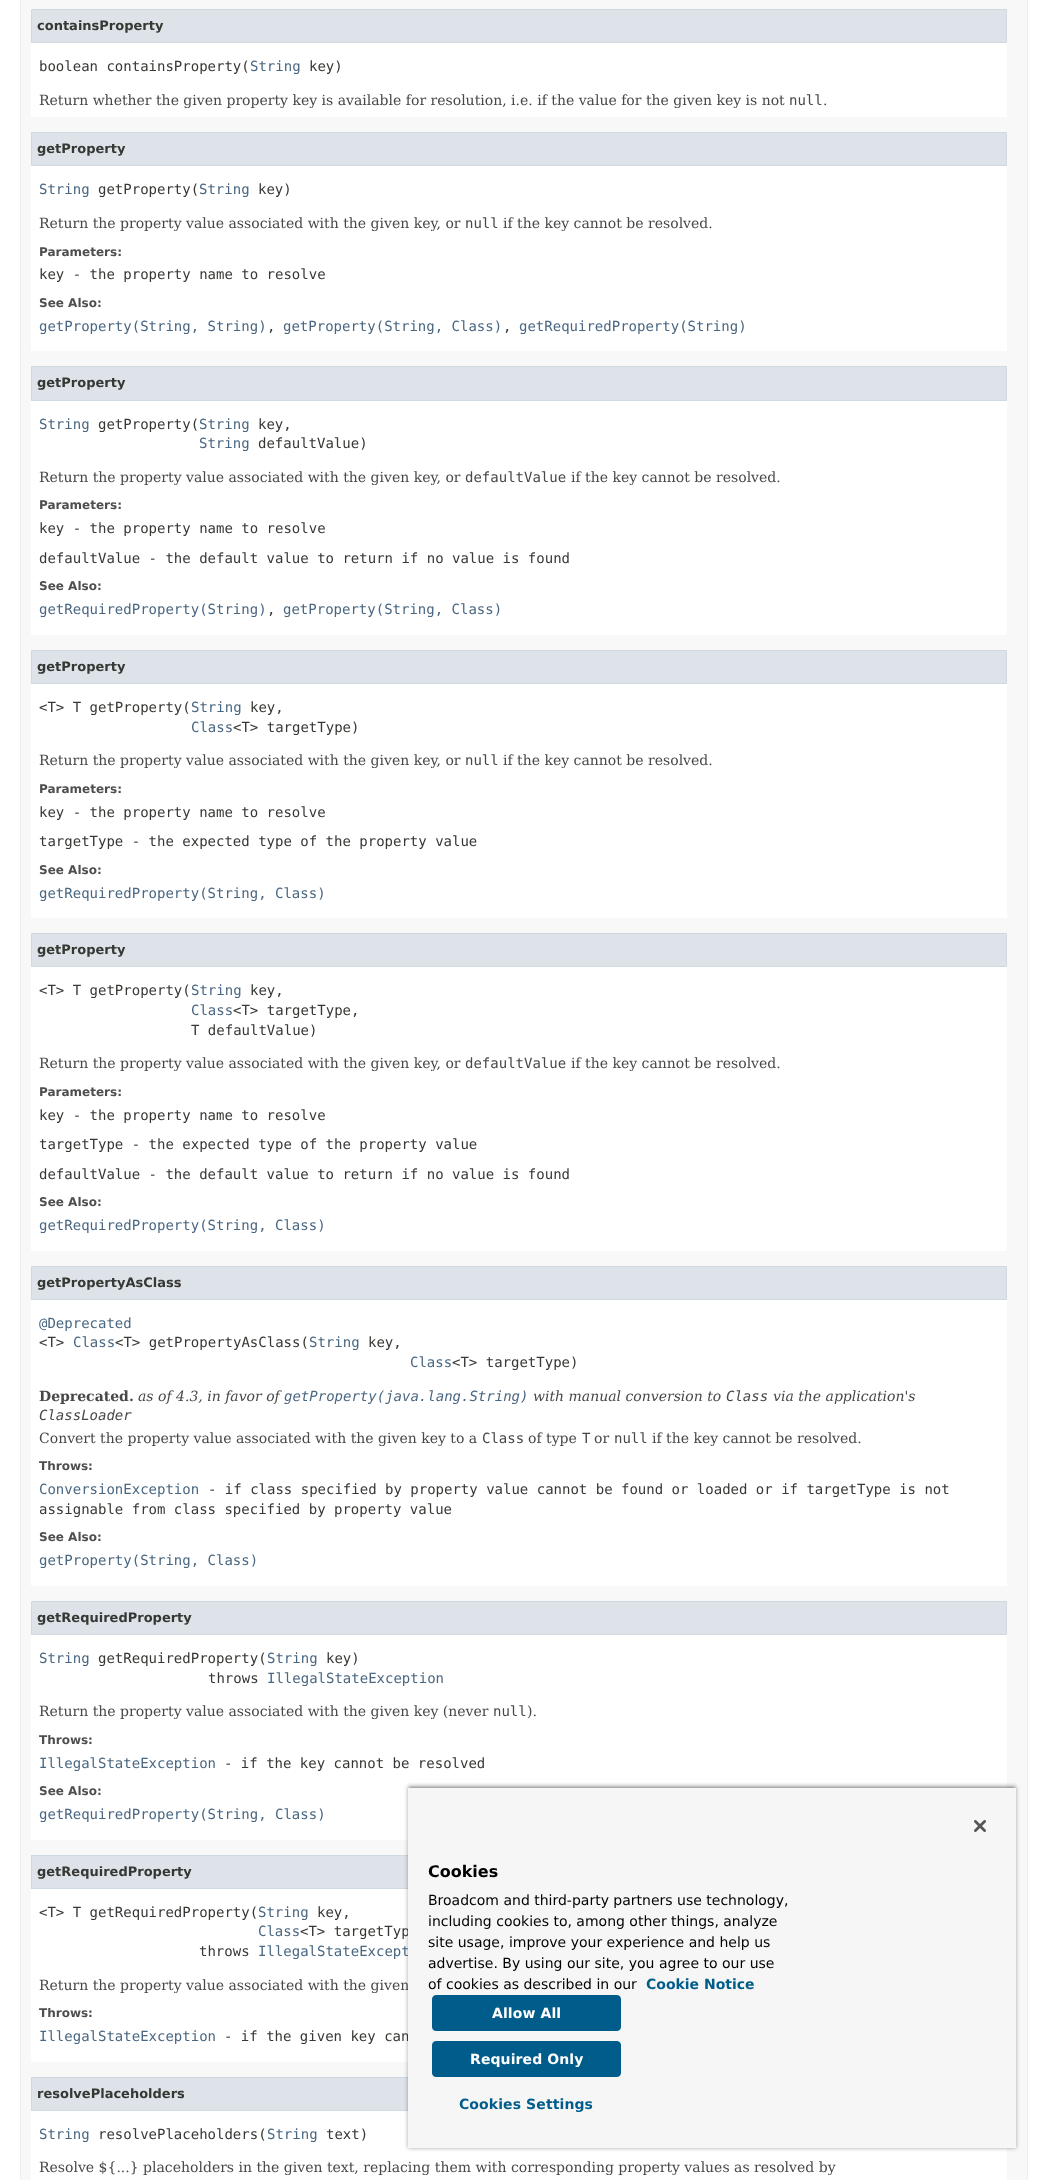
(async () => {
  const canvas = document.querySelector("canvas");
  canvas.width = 1048;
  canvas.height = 2180;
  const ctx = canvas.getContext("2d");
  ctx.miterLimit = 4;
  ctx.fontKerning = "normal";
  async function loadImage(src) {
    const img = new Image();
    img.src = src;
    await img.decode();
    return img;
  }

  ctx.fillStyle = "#ffffff";
  ctx.fillRect(0, 0, 1048, 2180);
  ctx.fillStyle = "#f8f8f8";
  ctx.beginPath();
  ctx.rect(20.5, -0.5, 1007, 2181);
  ctx.fill();
  ctx.strokeStyle = "#ededed";
  ctx.stroke();
  ctx.fillStyle = "#ffffff";
  ctx.fillRect(31, 43, 976, 74);
  ctx.fillStyle = "#dee3e9";
  ctx.beginPath();
  ctx.rect(31.5, 9.5, 975, 33);
  ctx.fill();
  ctx.strokeStyle = "#d0d9e0";
  ctx.stroke();
  ctx.fillStyle = "#ffffff";
  ctx.fillRect(31, 166, 976, 185);
  ctx.fillStyle = "#dee3e9";
  ctx.beginPath();
  ctx.rect(31.5, 132.5, 975, 33);
  ctx.fill();
  ctx.stroke();
  ctx.fillStyle = "#ffffff";
  ctx.fillRect(31, 401, 976, 234);
  ctx.fillStyle = "#dee3e9";
  ctx.beginPath();
  ctx.rect(31.5, 366.5, 975, 34);
  ctx.fill();
  ctx.stroke();
  ctx.fillStyle = "#ffffff";
  ctx.fillRect(31, 684, 976, 234);
  ctx.fillStyle = "#dee3e9";
  ctx.beginPath();
  ctx.rect(31.5, 650.5, 975, 33);
  ctx.fill();
  ctx.stroke();
  ctx.fillStyle = "#ffffff";
  ctx.fillRect(31, 967, 976, 284);
  ctx.fillStyle = "#dee3e9";
  ctx.beginPath();
  ctx.rect(31.5, 933.5, 975, 33);
  ctx.fill();
  ctx.stroke();
  ctx.fillStyle = "#ffffff";
  ctx.fillRect(31, 1300, 976, 286);
  ctx.fillStyle = "#dee3e9";
  ctx.beginPath();
  ctx.rect(31.5, 1266.5, 975, 33);
  ctx.fill();
  ctx.stroke();
  ctx.fillStyle = "#ffffff";
  ctx.fillRect(31, 1635, 976, 205);
  ctx.fillStyle = "#dee3e9";
  ctx.beginPath();
  ctx.rect(31.5, 1601.5, 975, 33);
  ctx.fill();
  ctx.stroke();
  ctx.fillStyle = "#ffffff";
  ctx.fillRect(31, 1889, 377, 173);
  ctx.fillStyle = "#dee3e9";
  ctx.fillRect(32, 1856, 376, 32);
  ctx.strokeRect(31.5, 1855.5, 975, 33);
  ctx.fillStyle = "#ffffff";
  ctx.fillRect(31, 2111, 976, 69);
  ctx.fillStyle = "#dee3e9";
  ctx.fillRect(32, 2078, 376, 32);
  ctx.strokeRect(31.5, 2077.5, 975, 33);
  ctx.fillStyle = "rgba(0, 0, 0, 0.35)";
  ctx.filter = "blur(2px)";
  ctx.beginPath();
  ctx.rect(408, 1786, 608, 362);
  ctx.fill();
  ctx.filter = "none";
  ctx.save();
  ctx.beginPath();
  ctx.rect(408, 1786, 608, 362);
  ctx.clip();
  ctx.fillStyle = "rgba(0, 0, 0, 0.2)";
  ctx.filter = "blur(2px)";
  ctx.beginPath();
  ctx.rect(408, 1788, 608, 360);
  ctx.fill();
  ctx.filter = "none";
  ctx.restore();
  ctx.font = "bold 13px DejaVu Sans";
  ctx.fillStyle = "#353833";
  ctx.fillText("containsProperty", 37, 30);
  ctx.font = "14px DejaVu Sans Mono";
  ctx.fillText("boolean containsProperty(", 39, 71);
  ctx.fillStyle = "#4a6782";
  ctx.fillText("String", 250, 71);
  ctx.fillStyle = "#353833";
  ctx.fillText("key)", 309, 71);
  ctx.font = "14px DejaVu Serif";
  ctx.fillStyle = "#474747";
  ctx.fillText("Return whether the given property key is available for resolution, i.e. if the value for the given key is not", 39, 105);
  ctx.font = "14px DejaVu Sans Mono";
  ctx.fillText("null", 789, 105);
  ctx.font = "14px DejaVu Serif";
  ctx.fillText(".", 823, 105);
  ctx.font = "bold 13px DejaVu Sans";
  ctx.fillStyle = "#353833";
  ctx.fillText("getProperty", 37, 153);
  ctx.font = "14px DejaVu Sans Mono";
  ctx.fillStyle = "#4a6782";
  ctx.fillText("String", 39, 194);
  ctx.fillStyle = "#353833";
  ctx.fillText("getProperty(", 98, 194);
  ctx.fillStyle = "#4a6782";
  ctx.fillText("String", 199, 194);
  ctx.fillStyle = "#353833";
  ctx.fillText("key)", 258, 194);
  ctx.font = "14px DejaVu Serif";
  ctx.fillStyle = "#474747";
  ctx.fillText("Return the property value associated with the given key, or", 39, 228);
  ctx.font = "14px DejaVu Sans Mono";
  ctx.fillText("null", 465, 228);
  ctx.font = "14px DejaVu Serif";
  ctx.fillText("if the key cannot be resolved.", 503, 228);
  ctx.font = "bold 12px DejaVu Sans";
  ctx.fillStyle = "#4e4e4e";
  ctx.fillText("Parameters:", 39, 256);
  ctx.font = "14px DejaVu Sans Mono";
  ctx.fillStyle = "#353833";
  ctx.fillText("key - the property name to resolve", 39, 279);
  ctx.font = "bold 12px DejaVu Sans";
  ctx.fillStyle = "#4e4e4e";
  ctx.fillText("See Also:", 39, 307);
  ctx.font = "14px DejaVu Sans Mono";
  ctx.fillStyle = "#4a6782";
  ctx.fillText("getProperty(String, String)", 39, 331);
  ctx.fillStyle = "#353833";
  ctx.fillText(",", 267, 331);
  ctx.fillStyle = "#4a6782";
  ctx.fillText("getProperty(String, Class)", 283, 331);
  ctx.fillStyle = "#353833";
  ctx.fillText(",", 503, 331);
  ctx.fillStyle = "#4a6782";
  ctx.fillText("getRequiredProperty(String)", 519, 331);
  ctx.font = "bold 13px DejaVu Sans";
  ctx.fillStyle = "#353833";
  ctx.fillText("getProperty", 37, 387);
  ctx.font = "14px DejaVu Sans Mono";
  ctx.fillStyle = "#4a6782";
  ctx.fillText("String", 39, 429);
  ctx.fillStyle = "#353833";
  ctx.fillText("getProperty(", 98, 429);
  ctx.fillStyle = "#4a6782";
  ctx.fillText("String", 199, 429);
  ctx.fillStyle = "#353833";
  ctx.fillText("key,", 258, 429);
  ctx.fillStyle = "#4a6782";
  ctx.fillText("String", 199, 448);
  ctx.fillStyle = "#353833";
  ctx.fillText("defaultValue)", 258, 448);
  ctx.font = "14px DejaVu Serif";
  ctx.fillStyle = "#474747";
  ctx.fillText("Return the property value associated with the given key, or", 39, 482);
  ctx.font = "14px DejaVu Sans Mono";
  ctx.fillText("defaultValue", 465, 482);
  ctx.font = "14px DejaVu Serif";
  ctx.fillText("if the key cannot be resolved.", 571, 482);
  ctx.font = "bold 12px DejaVu Sans";
  ctx.fillStyle = "#4e4e4e";
  ctx.fillText("Parameters:", 39, 509);
  ctx.font = "14px DejaVu Sans Mono";
  ctx.fillStyle = "#353833";
  ctx.fillText("key - the property name to resolve", 39, 533);
  ctx.fillText("defaultValue - the default value to return if no value is found", 39, 563);
  ctx.font = "bold 12px DejaVu Sans";
  ctx.fillStyle = "#4e4e4e";
  ctx.fillText("See Also:", 39, 590);
  ctx.font = "14px DejaVu Sans Mono";
  ctx.fillStyle = "#4a6782";
  ctx.fillText("getRequiredProperty(String)", 39, 614);
  ctx.fillStyle = "#353833";
  ctx.fillText(",", 267, 614);
  ctx.fillStyle = "#4a6782";
  ctx.fillText("getProperty(String, Class)", 283, 614);
  ctx.font = "bold 13px DejaVu Sans";
  ctx.fillStyle = "#353833";
  ctx.fillText("getProperty", 37, 671);
  ctx.font = "14px DejaVu Sans Mono";
  ctx.fillText("<T> T getProperty(", 39, 712);
  ctx.fillStyle = "#4a6782";
  ctx.fillText("String", 191, 712);
  ctx.fillStyle = "#353833";
  ctx.fillText("key,", 250, 712);
  ctx.fillStyle = "#4a6782";
  ctx.fillText("Class", 191, 732);
  ctx.fillStyle = "#353833";
  ctx.fillText("<T> targetType)", 233, 732);
  ctx.font = "14px DejaVu Serif";
  ctx.fillStyle = "#474747";
  ctx.fillText("Return the property value associated with the given key, or", 39, 765);
  ctx.font = "14px DejaVu Sans Mono";
  ctx.fillText("null", 465, 765);
  ctx.font = "14px DejaVu Serif";
  ctx.fillText("if the key cannot be resolved.", 503, 765);
  ctx.font = "bold 12px DejaVu Sans";
  ctx.fillStyle = "#4e4e4e";
  ctx.fillText("Parameters:", 39, 793);
  ctx.font = "14px DejaVu Sans Mono";
  ctx.fillStyle = "#353833";
  ctx.fillText("key - the property name to resolve", 39, 817);
  ctx.fillText("targetType - the expected type of the property value", 39, 846);
  ctx.font = "bold 12px DejaVu Sans";
  ctx.fillStyle = "#4e4e4e";
  ctx.fillText("See Also:", 39, 874);
  ctx.font = "14px DejaVu Sans Mono";
  ctx.fillStyle = "#4a6782";
  ctx.fillText("getRequiredProperty(String, Class)", 39, 898);
  ctx.font = "bold 13px DejaVu Sans";
  ctx.fillStyle = "#353833";
  ctx.fillText("getProperty", 37, 954);
  ctx.font = "14px DejaVu Sans Mono";
  ctx.fillText("<T> T getProperty(", 39, 995);
  ctx.fillStyle = "#4a6782";
  ctx.fillText("String", 191, 995);
  ctx.fillStyle = "#353833";
  ctx.fillText("key,", 250, 995);
  ctx.fillStyle = "#4a6782";
  ctx.fillText("Class", 191, 1015);
  ctx.fillStyle = "#353833";
  ctx.fillText("<T> targetType,", 233, 1015);
  ctx.fillText("T defaultValue)", 191, 1035);
  ctx.font = "14px DejaVu Serif";
  ctx.fillStyle = "#474747";
  ctx.fillText("Return the property value associated with the given key, or", 39, 1068);
  ctx.font = "14px DejaVu Sans Mono";
  ctx.fillText("defaultValue", 465, 1068);
  ctx.font = "14px DejaVu Serif";
  ctx.fillText("if the key cannot be resolved.", 571, 1068);
  ctx.font = "bold 12px DejaVu Sans";
  ctx.fillStyle = "#4e4e4e";
  ctx.fillText("Parameters:", 39, 1096);
  ctx.font = "14px DejaVu Sans Mono";
  ctx.fillStyle = "#353833";
  for (const [text, x, y] of [
    ["key - the property name to resolve", 39, 1120],
    ["targetType - the expected type of the property value", 39, 1149],
    ["defaultValue - the default value to return if no value is found", 39, 1179],
  ]) {
    ctx.fillText(text, x, y);
  }
  ctx.font = "bold 12px DejaVu Sans";
  ctx.fillStyle = "#4e4e4e";
  ctx.fillText("See Also:", 39, 1206);
  ctx.font = "14px DejaVu Sans Mono";
  ctx.fillStyle = "#4a6782";
  ctx.fillText("getRequiredProperty(String, Class)", 39, 1230);
  ctx.font = "bold 13px DejaVu Sans";
  ctx.fillStyle = "#353833";
  ctx.fillText("getPropertyAsClass", 37, 1287);
  ctx.font = "14px DejaVu Sans Mono";
  ctx.fillStyle = "#4a6782";
  ctx.fillText("@Deprecated", 39, 1328);
  ctx.fillStyle = "#353833";
  ctx.fillText("<T>", 39, 1347);
  ctx.fillStyle = "#4a6782";
  ctx.fillText("Class", 73, 1347);
  ctx.fillStyle = "#353833";
  ctx.fillText("<T> getPropertyAsClass(", 115, 1347);
  ctx.fillStyle = "#4a6782";
  ctx.fillText("String", 309, 1347);
  ctx.fillStyle = "#353833";
  ctx.fillText("key,", 368, 1347);
  ctx.fillStyle = "#4a6782";
  ctx.fillText("Class", 410, 1367);
  ctx.fillStyle = "#353833";
  ctx.fillText("<T> targetType)", 452, 1367);
  ctx.font = "bold 14px DejaVu Serif";
  ctx.fillStyle = "#474747";
  ctx.fillText("Deprecated.", 39, 1401);
  ctx.font = "italic 14px DejaVu Serif";
  ctx.fillText("as of 4.3, in favor of", 138, 1401);
  ctx.font = "italic 14px DejaVu Sans Mono";
  ctx.fillStyle = "#4a6782";
  ctx.fillText("getProperty(java.lang.String)", 284, 1401);
  ctx.font = "italic 14px DejaVu Serif";
  ctx.fillStyle = "#474747";
  ctx.fillText("with manual conversion to", 533, 1401);
  ctx.font = "italic 14px DejaVu Sans Mono";
  ctx.fillText("Class", 726, 1401);
  ctx.font = "italic 14px DejaVu Serif";
  ctx.fillText("via the application's", 773, 1401);
  ctx.font = "italic 14px DejaVu Sans Mono";
  ctx.fillText("ClassLoader", 39, 1420);
  ctx.font = "14px DejaVu Serif";
  ctx.fillText("Convert the property value associated with the given key to a", 39, 1443);
  ctx.font = "14px DejaVu Sans Mono";
  ctx.fillText("Class", 482, 1443);
  ctx.font = "14px DejaVu Serif";
  ctx.fillText("of type", 528, 1443);
  ctx.font = "14px DejaVu Sans Mono";
  ctx.fillText("T", 582, 1443);
  ctx.font = "14px DejaVu Serif";
  ctx.fillText("or", 594, 1443);
  ctx.font = "14px DejaVu Sans Mono";
  ctx.fillText("null", 614, 1443);
  ctx.font = "14px DejaVu Serif";
  ctx.fillText("if the key cannot be resolved.", 652, 1443);
  ctx.font = "bold 12px DejaVu Sans";
  ctx.fillStyle = "#4e4e4e";
  ctx.fillText("Throws:", 39, 1470);
  ctx.font = "14px DejaVu Sans Mono";
  ctx.fillStyle = "#4a6782";
  ctx.fillText("ConversionException", 39, 1494);
  ctx.fillStyle = "#353833";
  ctx.fillText("- if class specified by property value cannot be found or loaded or if targetType is not", 208, 1494);
  ctx.fillText("assignable from class specified by property value", 39, 1514);
  ctx.font = "bold 12px DejaVu Sans";
  ctx.fillStyle = "#4e4e4e";
  ctx.fillText("See Also:", 39, 1541);
  ctx.font = "14px DejaVu Sans Mono";
  ctx.fillStyle = "#4a6782";
  ctx.fillText("getProperty(String, Class)", 39, 1565);
  ctx.font = "bold 13px DejaVu Sans";
  ctx.fillStyle = "#353833";
  ctx.fillText("getRequiredProperty", 37, 1622);
  ctx.font = "14px DejaVu Sans Mono";
  ctx.fillStyle = "#4a6782";
  ctx.fillText("String", 39, 1663);
  ctx.fillStyle = "#353833";
  ctx.fillText("getRequiredProperty(", 98, 1663);
  ctx.fillStyle = "#4a6782";
  ctx.fillText("String", 267, 1663);
  ctx.fillStyle = "#353833";
  ctx.fillText("key)", 326, 1663);
  ctx.fillText("throws", 208, 1683);
  ctx.fillStyle = "#4a6782";
  ctx.fillText("IllegalStateException", 267, 1683);
  ctx.font = "14px DejaVu Serif";
  ctx.fillStyle = "#474747";
  ctx.fillText("Return the property value associated with the given key (never", 39, 1716);
  ctx.font = "14px DejaVu Sans Mono";
  ctx.fillText("null", 493, 1716);
  ctx.font = "14px DejaVu Serif";
  ctx.fillText(").", 527, 1716);
  ctx.font = "bold 12px DejaVu Sans";
  ctx.fillStyle = "#4e4e4e";
  ctx.fillText("Throws:", 39, 1744);
  ctx.font = "14px DejaVu Sans Mono";
  ctx.fillStyle = "#4a6782";
  ctx.fillText("IllegalStateException", 39, 1768);
  ctx.fillStyle = "#353833";
  ctx.fillText("- if the key cannot be resolved", 224, 1768);
  ctx.font = "bold 12px DejaVu Sans";
  ctx.fillStyle = "#4e4e4e";
  ctx.fillText("See Also:", 39, 1795);
  ctx.font = "14px DejaVu Sans Mono";
  ctx.fillStyle = "#4a6782";
  ctx.fillText("getRequiredProperty(String, Class)", 39, 1819);
  ctx.font = "bold 13px DejaVu Sans";
  ctx.fillStyle = "#353833";
  ctx.fillText("getRequiredProperty", 37, 1876);
  ctx.font = "14px DejaVu Sans Mono";
  ctx.fillText("<T> T getRequiredProperty(", 39, 1917);
  ctx.fillStyle = "#4a6782";
  ctx.fillText("String", 258, 1917);
  ctx.fillStyle = "#353833";
  ctx.fillText("key,", 317, 1917);
  ctx.fillStyle = "#4a6782";
  ctx.fillText("Class", 258, 1936);
  ctx.fillStyle = "#353833";
  ctx.fillText("<T> targetTyp", 300, 1936);
  ctx.fillText("throws", 199, 1956);
  ctx.fillStyle = "#4a6782";
  ctx.fillText("IllegalStateExcept", 258, 1956);
  ctx.font = "14px DejaVu Serif";
  ctx.fillStyle = "#474747";
  ctx.fillText("Return the property value associated with the given", 39, 1990);
  ctx.font = "bold 12px DejaVu Sans";
  ctx.fillStyle = "#4e4e4e";
  ctx.fillText("Throws:", 39, 2017);
  ctx.font = "14px DejaVu Sans Mono";
  ctx.fillStyle = "#4a6782";
  ctx.fillText("IllegalStateException", 39, 2041);
  ctx.fillStyle = "#353833";
  ctx.fillText("- if the given key can", 224, 2041);
  ctx.font = "bold 13px DejaVu Sans";
  ctx.fillText("resolvePlaceholders", 37, 2098);
  ctx.font = "14px DejaVu Sans Mono";
  ctx.fillStyle = "#4a6782";
  ctx.fillText("String", 39, 2139);
  ctx.fillStyle = "#353833";
  ctx.fillText("resolvePlaceholders(", 98, 2139);
  ctx.fillStyle = "#4a6782";
  ctx.fillText("String", 267, 2139);
  ctx.fillStyle = "#353833";
  ctx.fillText("text)", 326, 2139);
  ctx.font = "14px DejaVu Serif";
  ctx.fillStyle = "#474747";
  ctx.fillText("Resolve ${...} placeholders in the given text, replacing them with corresponding property values as resolved by", 39, 2172);
  ctx.fillStyle = "#f6f6f6";
  ctx.fillRect(408, 1788, 608, 360);
  ctx.drawImage(await loadImage("img/1.png"), 974, 1820, 12, 12);
  ctx.font = "bold 16px DejaVu Sans";
  ctx.fillStyle = "#000000";
  ctx.fillText("Cookies", 428, 1877);
  ctx.font = "14px DejaVu Sans";
  for (const [text, x, y] of [
    ["Broadcom and third-party partners use technology,", 428, 1905],
    ["including cookies to, among other things, analyze", 428, 1926],
    ["site usage, improve your experience and help us", 428, 1947],
    ["advertise. By using our site, you agree to our use", 428, 1968],
    ["of cookies as described in our", 428, 1989],
  ]) {
    ctx.fillText(text, x, y);
  }
  ctx.font = "bold 14px DejaVu Sans";
  ctx.fillStyle = "#005c8a";
  ctx.fillText("Cookie Notice", 646, 1989);
  ctx.beginPath();
  ctx.roundRect(432.5, 1995.5, 188, 35, 3.5);
  ctx.fill();
  ctx.strokeStyle = "#005c8a";
  ctx.stroke();
  ctx.letterSpacing = "0.1px";
  ctx.fillStyle = "#ffffff";
  ctx.fillText("Allow All", 492, 2018);
  ctx.fillStyle = "#005c8a";
  ctx.beginPath();
  ctx.roundRect(432.5, 2041.5, 188, 35, 3.5);
  ctx.fill();
  ctx.stroke();
  ctx.fillStyle = "#ffffff";
  ctx.fillText("Required Only", 470, 2064);
  ctx.fillStyle = "#005c8a";
  ctx.fillText("Cookies Settings", 459, 2109);
})();
